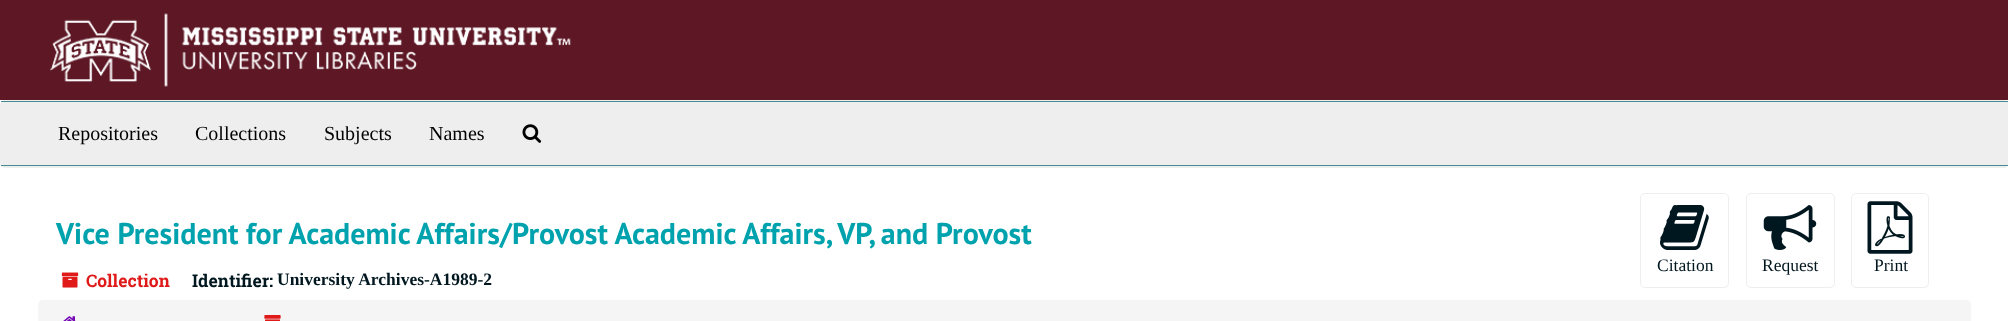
(async () => {
  const canvas = document.querySelector("canvas");
  canvas.width = 2008;
  canvas.height = 321;
  const ctx = canvas.getContext("2d");
  ctx.miterLimit = 4;
  ctx.fontKerning = "normal";
  async function loadImage(src) {
    const img = new Image();
    img.src = src;
    await img.decode();
    return img;
  }

  ctx.fillStyle = "#ffffff";
  ctx.fillRect(0, 0, 2008, 321);
  ctx.fillStyle = "#5d1725";
  ctx.fillRect(0, 0, 2008, 100);
  ctx.drawImage(await loadImage("img/1.png"), 50, 13, 521, 74);
  ctx.fillStyle = "#eeeeee";
  ctx.beginPath();
  ctx.roundRect(0.5, 100.5, 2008, 67, 4.5);
  ctx.fill();
  ctx.strokeStyle = "#eeeeee";
  ctx.stroke();
  ctx.fillStyle = "#458a94";
  ctx.fillRect(1, 101, 2007, 1);
  ctx.fillRect(1, 165, 2007, 1);
  ctx.drawImage(await loadImage("img/2.png"), 522, 124, 20, 19);
  ctx.drawImage(await loadImage("img/3.png"), 61, 272, 18, 16);
  ctx.beginPath();
  ctx.roundRect(1640.5, 193.5, 88, 94, 4.5);
  ctx.stroke();
  ctx.drawImage(await loadImage("img/4.png"), 1660, 205, 49, 45);
  ctx.beginPath();
  ctx.roundRect(1746.5, 193.5, 88, 94, 4.5);
  ctx.stroke();
  ctx.drawImage(await loadImage("img/5.png"), 1763, 205, 54, 45);
  ctx.beginPath();
  ctx.roundRect(1851.5, 193.5, 77, 94, 4.5);
  ctx.stroke();
  ctx.drawImage(await loadImage("img/6.png"), 1867, 201, 46, 53);
  ctx.fillStyle = "#f5f5f5";
  ctx.beginPath();
  ctx.roundRect(38, 300, 1933, 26, 5);
  ctx.fill();
  ctx.drawImage(await loadImage("img/7.png"), 63, 316, 13, 5);
  ctx.drawImage(await loadImage("img/8.png"), 264, 315, 17, 6);
  ctx.font = "20px Liberation Serif";
  ctx.fillStyle = "#000000";
  for (const [text, x, y] of [
    ["Repositories", 58, 140],
    ["Collections", 195, 140],
    ["Subjects", 324, 140],
    ["Names", 429, 140],
  ]) {
    ctx.fillText(text, x, y);
  }
  ctx.font = "bold 30px PT Sans";
  ctx.fillStyle = "#00a3ad";
  ctx.fillText("Vice President for Academic Affairs/Provost Academic Affairs, VP, and Provost", 56, 244);
  ctx.font = "bold 17.5px Roboto Slab";
  ctx.fillStyle = "#e01919";
  ctx.fillText("Collection", 86, 287);
  ctx.fillStyle = "#00171f";
  ctx.fillText("Identifier:", 192, 287);
  ctx.font = "bold 17.5px Liberation Serif";
  ctx.fillText("University Archives-A1989-2", 277, 285);
  ctx.font = "17.5px Liberation Serif";
  for (const [text, x, y] of [
    ["Citation", 1657, 271],
    ["Request", 1762, 271],
    ["Print", 1874, 271],
  ]) {
    ctx.fillText(text, x, y);
  }
})();
